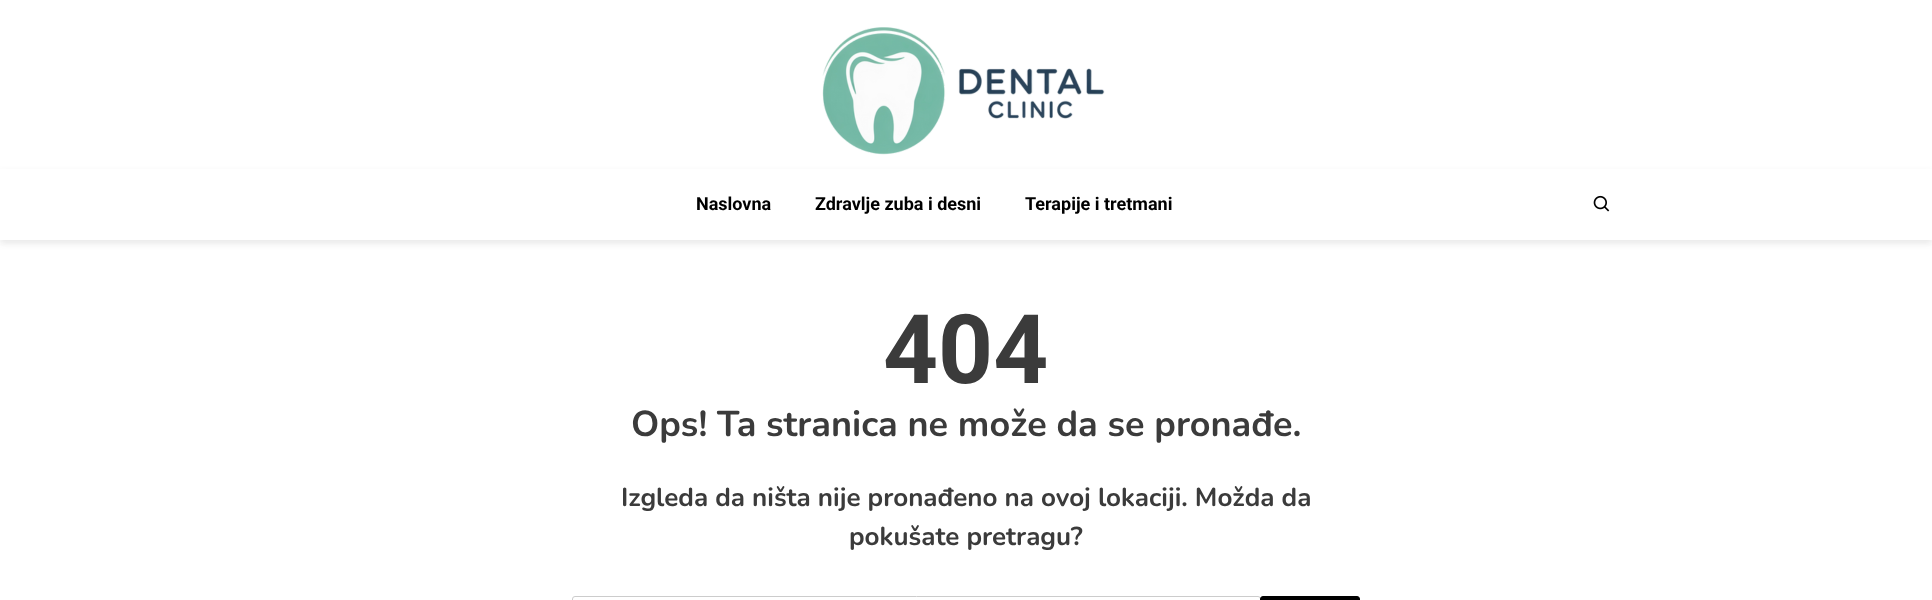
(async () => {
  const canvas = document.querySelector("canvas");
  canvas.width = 1932;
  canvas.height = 600;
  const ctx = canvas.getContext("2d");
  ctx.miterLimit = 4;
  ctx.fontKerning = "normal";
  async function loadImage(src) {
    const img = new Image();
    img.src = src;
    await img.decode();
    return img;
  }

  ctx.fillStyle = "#ffffff";
  ctx.fillRect(0, 0, 1932, 600);
  ctx.drawImage(await loadImage("img/1.png"), 822, 27, 283, 128);
  ctx.fillStyle = "rgba(53, 53, 53, 0.1)";
  ctx.filter = "blur(3px)";
  ctx.beginPath();
  ctx.rect(0, 172, 1932, 72);
  ctx.fill();
  ctx.filter = "none";
  ctx.fillStyle = "#ffffff";
  ctx.fillRect(0, 169, 1932, 71);
  ctx.drawImage(await loadImage("img/2.png"), 1593, 195, 17, 17);
  ctx.beginPath();
  ctx.roundRect(572.5, 596.5, 688, 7, 2.5);
  ctx.strokeStyle = "#cccccc";
  ctx.stroke();
  ctx.fillStyle = "#000000";
  ctx.beginPath();
  ctx.roundRect(1260.5, 596.5, 99, 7, 2.5);
  ctx.fill();
  ctx.strokeStyle = "#000000";
  ctx.stroke();
  ctx.font = "bold 18px Roboto";
  for (const [text, x, y] of [
    ["Naslovna", 696, 210],
    ["Zdravlje zuba i desni", 815, 210],
    ["Terapije i tretmani", 1025, 210],
  ]) {
    ctx.fillText(text, x, y);
  }
  ctx.font = "bold 96px Roboto";
  ctx.fillStyle = "#3b3b3b";
  ctx.fillText("404", 883, 383);
  ctx.font = "bold 36px Nunito";
  ctx.fillText("Ops! Ta stranica ne može da se pronađe.", 631, 436);
  ctx.font = "bold 26px Nunito";
  ctx.fillText("Izgleda da ništa nije pronađeno na ovoj lokaciji. Možda da", 621, 506);
  ctx.fillText("pokušate pretragu?", 849, 545);
})();
